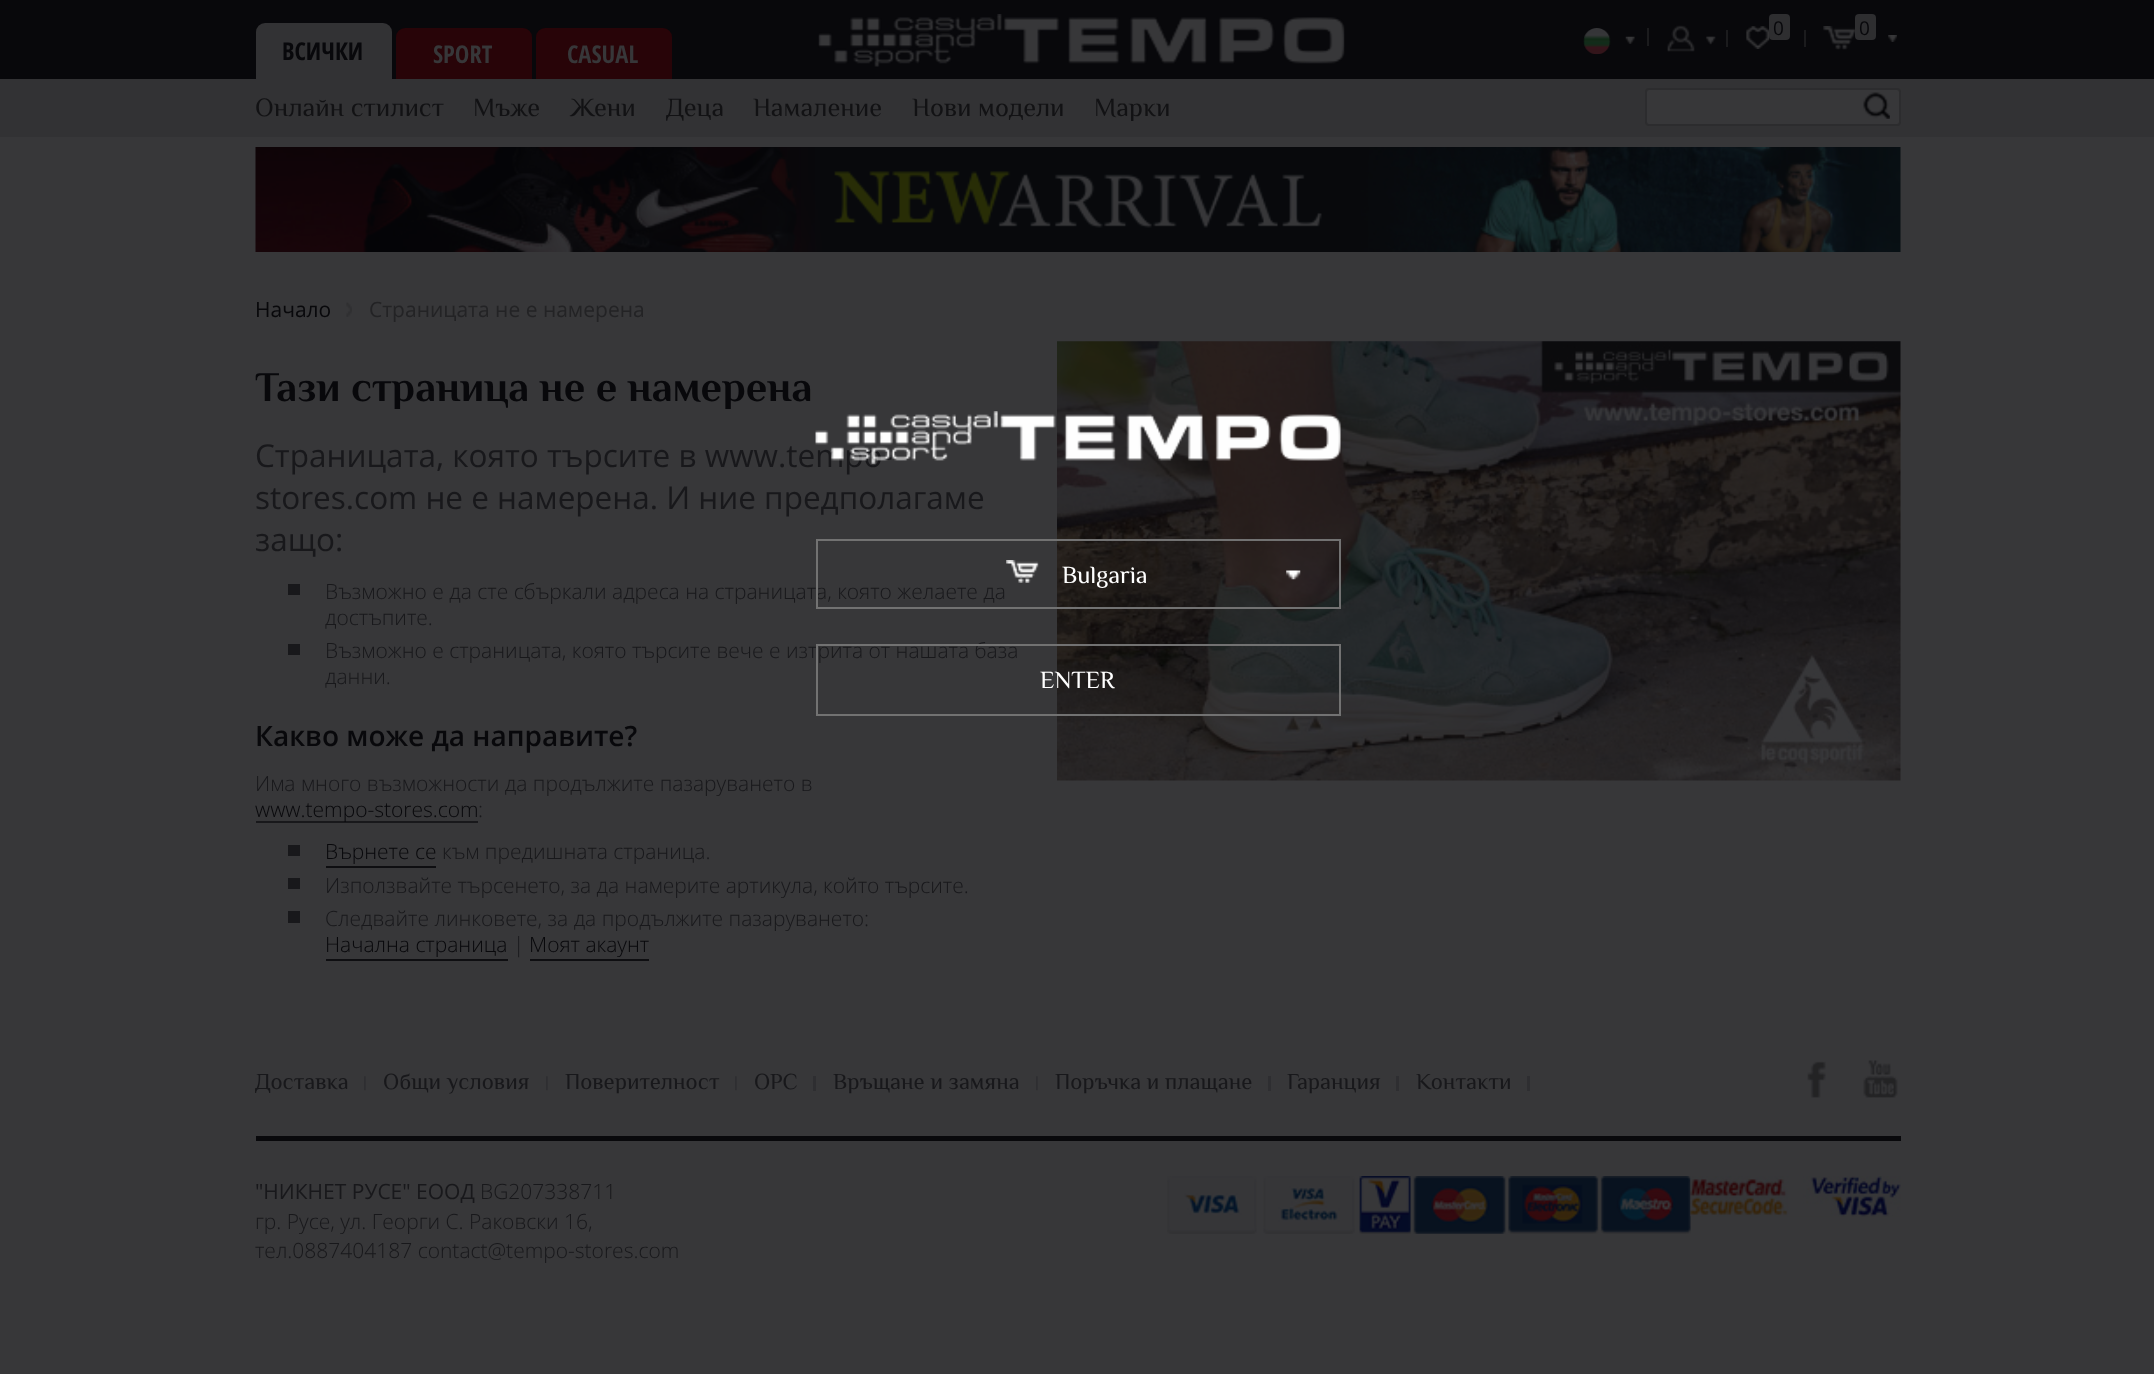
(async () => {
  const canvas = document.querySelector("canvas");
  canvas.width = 2154;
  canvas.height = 1374;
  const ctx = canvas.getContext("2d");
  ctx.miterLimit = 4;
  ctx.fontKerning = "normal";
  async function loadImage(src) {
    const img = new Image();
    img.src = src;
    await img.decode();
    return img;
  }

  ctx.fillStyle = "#373739";
  ctx.fillRect(0, 0, 2154, 1374);
  ctx.fillStyle = "#08080b";
  ctx.fillRect(0, 0, 2154, 79);
  ctx.drawImage(await loadImage("img/1.png"), 818, 14, 527, 53);
  ctx.drawImage(await loadImage("img/2.png"), 1625, 36, 10, 8);
  ctx.drawImage(await loadImage("img/3.png"), 1583, 28, 28, 27);
  ctx.fillStyle = "#1b1b1d";
  ctx.fillRect(1647, 28, 2, 18);
  ctx.drawImage(await loadImage("img/4.png"), 1705, 36, 11, 9);
  ctx.drawImage(await loadImage("img/5.png"), 1667, 25, 28, 27);
  ctx.fillRect(1726, 30, 2, 17);
  ctx.drawImage(await loadImage("img/6.png"), 1746, 26, 24, 23);
  ctx.fillStyle = "#2e2e30";
  ctx.beginPath();
  ctx.roundRect(1769, 14, 21, 26, 4);
  ctx.fill();
  ctx.fillStyle = "#1b1b1d";
  ctx.fillRect(1804, 30, 2, 17);
  ctx.drawImage(await loadImage("img/7.png"), 1888, 35, 9, 7);
  ctx.drawImage(await loadImage("img/8.png"), 1823, 26, 32, 24);
  ctx.fillStyle = "#2e2e30";
  ctx.beginPath();
  ctx.roundRect(1855, 14, 21, 26, 4);
  ctx.fill();
  ctx.fillStyle = "#323234";
  ctx.beginPath();
  ctx.roundRect(256, 23, 136, 56, [9, 9, 0, 0]);
  ctx.fill();
  ctx.fillStyle = "#280408";
  ctx.beginPath();
  ctx.roundRect(396, 28, 136, 51, [9, 9, 0, 0]);
  ctx.fill();
  ctx.beginPath();
  ctx.roundRect(536, 28, 136, 51, [9, 9, 0, 0]);
  ctx.fill();
  ctx.fillStyle = "#323234";
  ctx.fillRect(0, 79, 2154, 58);
  ctx.fillStyle = "#373739";
  ctx.beginPath();
  ctx.roundRect(1646, 89, 254, 36, 3);
  ctx.fill();
  ctx.strokeStyle = "#2c2c2e";
  ctx.lineWidth = 2;
  ctx.stroke();
  ctx.drawImage(await loadImage("img/9.png"), 1863, 92, 27, 27);
  ctx.drawImage(await loadImage("img/10.png"), 255, 147, 1646, 105);
  ctx.drawImage(await loadImage("img/11.png"), 346, 302, 6, 15);
  ctx.drawImage(await loadImage("img/12.png"), 1057, 341, 844, 440);
  for (const [x, y, w, h, color] of [
    [288, 584, 12, 11, "#18181b"],
    [288, 644, 12, 11, "#18181b"],
    [256, 821, 222, 2, "#18181b"],
    [288, 845, 12, 11, "#18181b"],
    [326, 866, 110, 2, "#0e0e11"],
    [288, 878, 12, 11, "#18181b"],
    [288, 911, 12, 12, "#18181b"],
    [326, 959, 182, 2, "#0e0e11"],
    [530, 959, 119, 2, "#0e0e11"],
    [256, 1136, 1645, 5, "#08080b"],
  ]) {
    ctx.fillStyle = color;
    ctx.fillRect(x, y, w, h);
  }
  ctx.drawImage(await loadImage("img/13.png"), 364, 1076, 2, 15);
  ctx.drawImage(await loadImage("img/13.png"), 546, 1076, 2, 15);
  ctx.drawImage(await loadImage("img/13.png"), 735, 1076, 2, 15);
  ctx.fillStyle = "#2e2e31";
  ctx.fillRect(813, 1076, 3, 15);
  ctx.drawImage(await loadImage("img/13.png"), 1036, 1076, 2, 15);
  for (const [x, y, w, h, color] of [
    [1268, 1076, 3, 15, "#2e2e31"],
    [1396, 1076, 3, 15, "#2e2e31"],
    [1527, 1076, 3, 15, "#2e2e31"],
  ]) {
    ctx.fillStyle = color;
    ctx.fillRect(x, y, w, h);
  }
  ctx.drawImage(await loadImage("img/14.png"), 1807, 1061, 19, 37);
  ctx.drawImage(await loadImage("img/15.png"), 1863, 1060, 35, 38);
  ctx.drawImage(await loadImage("img/16.png"), 1167, 1176, 524, 58);
  ctx.drawImage(await loadImage("img/17.png"), 1690, 1176, 211, 41);
  ctx.drawImage(await loadImage("img/19.png"), 1286, 570, 15, 10);
  ctx.font = "19px Open Sans";
  ctx.fillStyle = "#08080b";
  ctx.fillText("0", 1773, 35);
  ctx.fillText("0", 1859, 35);
  ctx.font = "bold 24.5px Open Sans Condensed";
  ctx.fillText("ВСИЧКИ", 282, 60);
  ctx.fillStyle = "#373739";
  ctx.fillText("SPORT", 433, 63);
  ctx.fillText("CASUAL", 567, 63);
  ctx.font = "26.25px Philosopher";
  ctx.fillStyle = "#121214";
  for (const [text, x, y] of [
    ["Онлайн стилист", 255, 116],
    ["Мъже", 473, 116],
    ["Жени", 570, 116],
    ["Деца", 666, 116],
    ["Намаление", 753, 116],
    ["Нови модели", 912, 116],
    ["Марки", 1094, 116],
  ]) {
    ctx.fillText(text, x, y);
  }
  ctx.font = "21px Open Sans";
  ctx.fillStyle = "#08080b";
  ctx.fillText("Начало", 255, 317);
  ctx.fillStyle = "#232325";
  ctx.fillText("Страницата не е намерена", 369, 317);
  ctx.font = "bold 42px Philosopher";
  ctx.fillStyle = "#08080b";
  ctx.fillText("Тази страница не е намерена", 255, 401);
  ctx.font = "31.5px Open Sans";
  ctx.fillStyle = "#18181b";
  for (const [text, x, y] of [
    ["Страницата, която търсите в www.tempo-", 255, 467],
    ["stores.com не е намерена. И ние предполагаме", 255, 509],
    ["защо:", 255, 551],
  ]) {
    ctx.fillText(text, x, y);
  }
  ctx.font = "300 21px Open Sans";
  for (const [text, x, y] of [
    ["Възможно е да сте сбъркали адреса на страницата, която желаете да", 325, 599],
    ["достъпите.", 325, 625],
    ["Възможно е страницата, която търсите вече е изтрита от нашата база", 325, 658],
    ["данни.", 325, 684],
  ]) {
    ctx.fillText(text, x, y);
  }
  ctx.font = "600 28px Open Sans";
  ctx.fillStyle = "#08080b";
  ctx.fillText("Какво може да направите?", 255, 746);
  ctx.font = "300 21px Open Sans";
  ctx.fillStyle = "#18181b";
  ctx.fillText("Има много възможности да продължите пазаруването в", 255, 791);
  ctx.fillStyle = "#08080b";
  ctx.fillText("www.tempo-stores.com", 255, 817);
  ctx.fillStyle = "#18181b";
  ctx.fillText(":", 478, 817);
  ctx.fillStyle = "#08080b";
  ctx.fillText("Върнете се", 325, 859);
  ctx.fillStyle = "#18181b";
  for (const [text, x, y] of [
    ["към предишната страница.", 442, 859],
    ["Използвайте търсенето, за да намерите артикула, който търсите.", 325, 893],
    ["Следвайте линковете, за да продължите пазаруването:", 325, 926],
  ]) {
    ctx.fillText(text, x, y);
  }
  ctx.fillStyle = "#08080b";
  ctx.fillText("Начална страница", 325, 952);
  ctx.fillStyle = "#18181b";
  ctx.fillText("|", 513, 952);
  ctx.fillStyle = "#08080b";
  ctx.fillText("Моят акаунт", 529, 952);
  ctx.font = "22.75px Philosopher";
  ctx.fillStyle = "#18181b";
  for (const [text, x, y] of [
    ["Доставка", 255, 1089],
    ["Общи условия", 383, 1089],
    ["Поверителност", 565, 1089],
    ["ОРС", 754, 1089],
    ["Връщане и замяна", 833, 1089],
    ["Поръчка и плащане", 1055, 1089],
    ["Гаранция", 1287, 1089],
    ["Контакти", 1416, 1089],
  ]) {
    ctx.fillText(text, x, y);
  }
  ctx.font = "21px Open Sans";
  ctx.fillText("\"НИКНЕТ РУСЕ\" ЕООД", 255, 1199);
  ctx.font = "300 21px Open Sans";
  for (const [text, x, y] of [
    ["BG207338711", 480, 1199],
    ["гр. Русе, ул. Георги С. Раковски 16,", 255, 1229],
    ["тел.0887404187 contact@tempo-stores.com", 255, 1258],
  ]) {
    ctx.fillText(text, x, y);
  }
  ctx.drawImage(await loadImage("img/18.png"), 815, 411, 526, 53);
  ctx.strokeStyle = "#727272";
  ctx.strokeRect(817, 540, 523, 68);
  ctx.drawImage(await loadImage("img/20.png"), 1006, 560, 33, 23);
  ctx.font = "24.5px Philosopher";
  ctx.fillStyle = "#ffffff";
  ctx.fillText("Bulgaria", 1062, 583);
  ctx.strokeRect(817, 645, 523, 70);
  ctx.fillText("ENTER", 1040, 688);
})();
